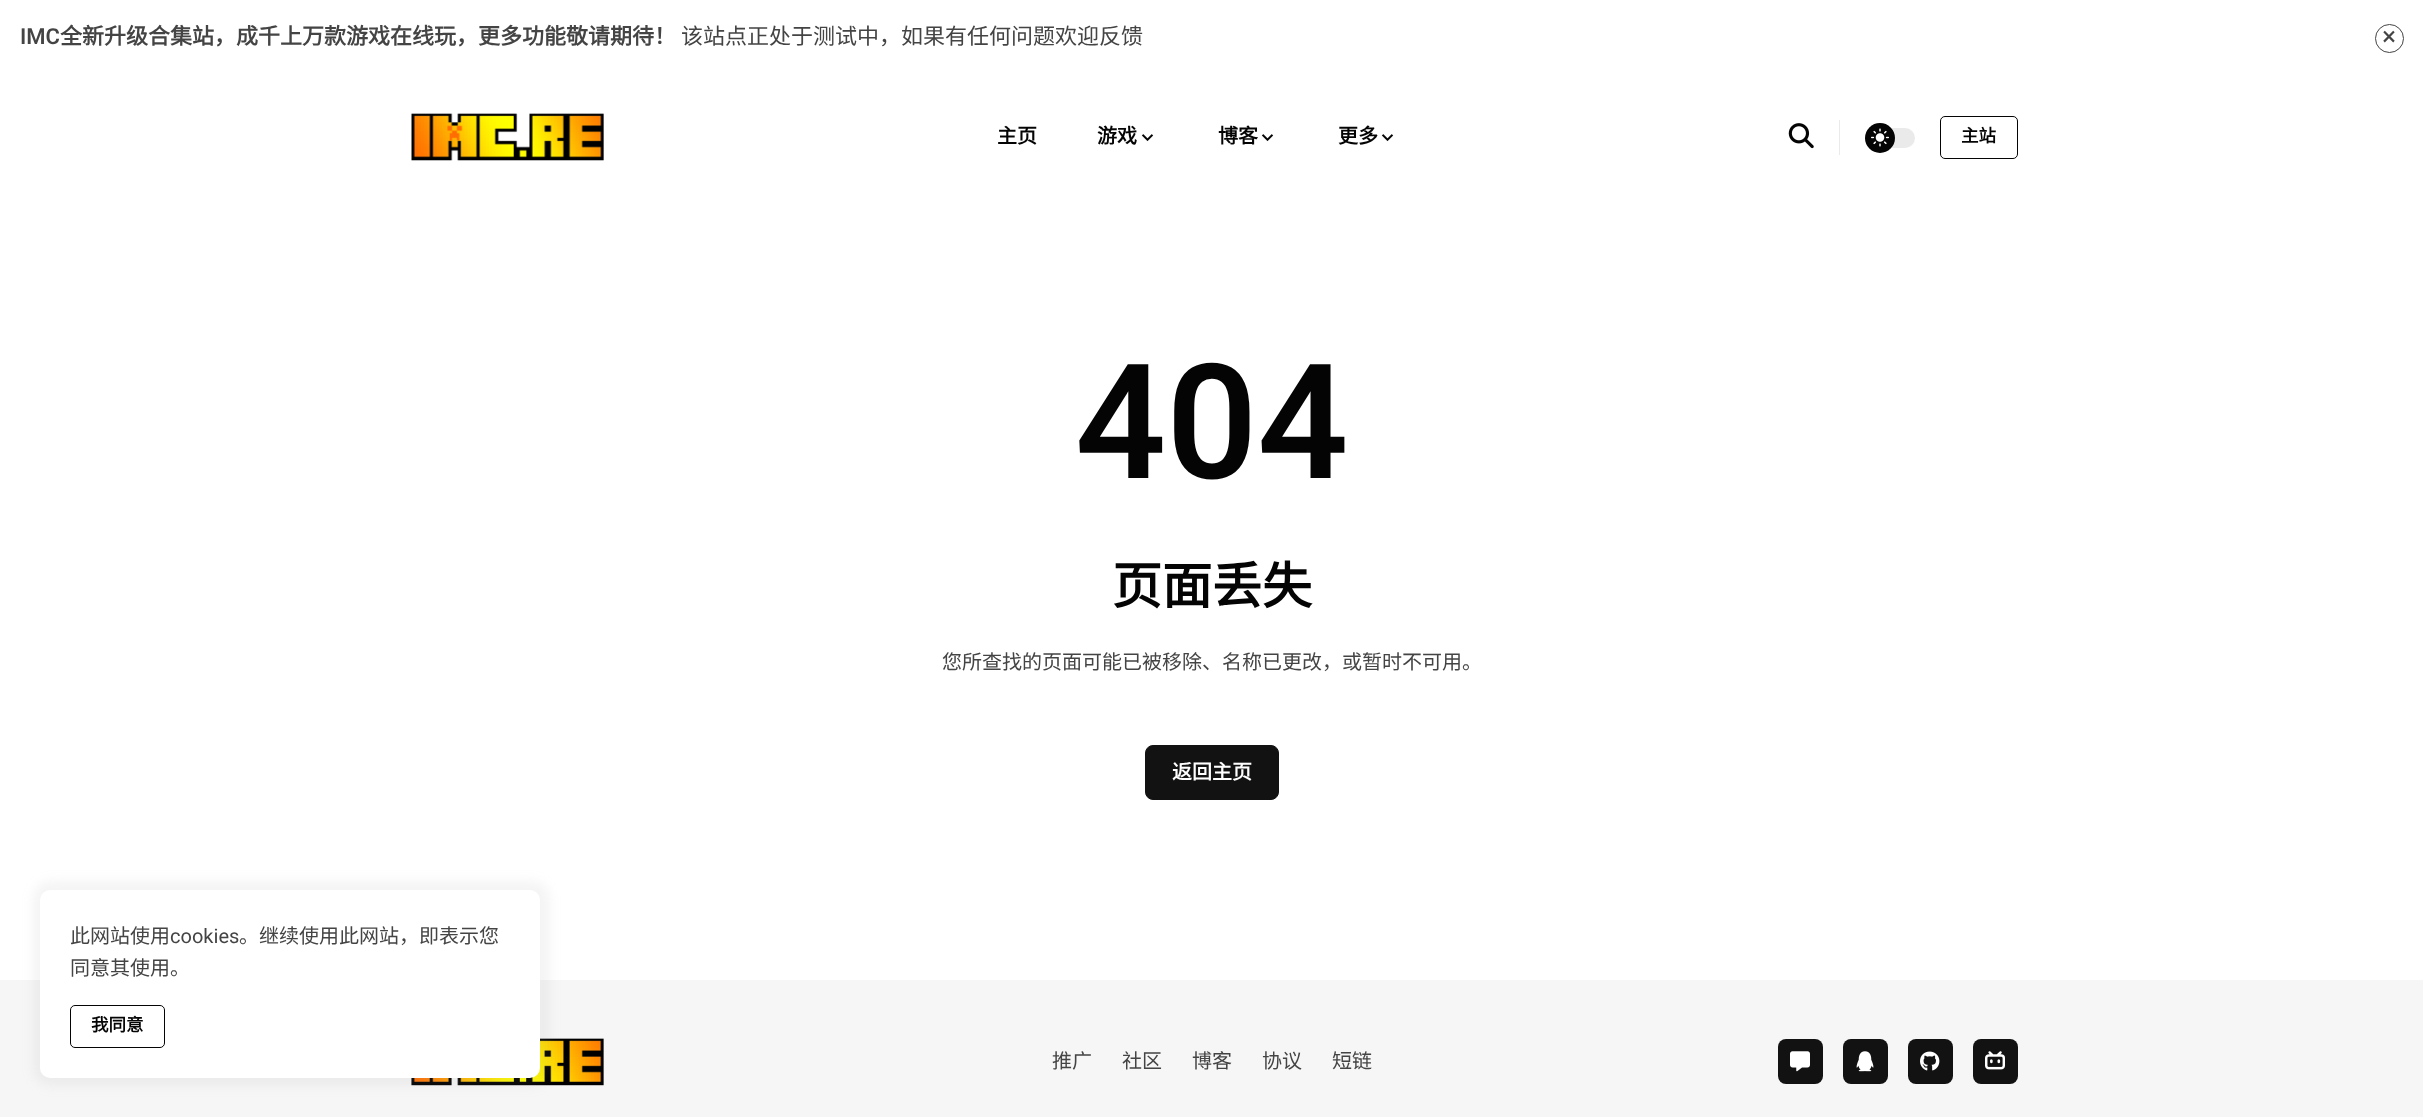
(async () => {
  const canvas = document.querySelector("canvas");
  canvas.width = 2423;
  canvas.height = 1117;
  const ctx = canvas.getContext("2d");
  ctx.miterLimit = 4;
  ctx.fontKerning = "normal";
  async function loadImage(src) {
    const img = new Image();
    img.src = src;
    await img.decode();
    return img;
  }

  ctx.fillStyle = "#ffffff";
  ctx.fillRect(0, 0, 2423, 1117);
  ctx.beginPath();
  ctx.arc(2389.5, 38.5, 14, 0, Math.PI * 2);
  ctx.strokeStyle = "#444444";
  ctx.stroke();
  ctx.drawImage(await loadImage("img/1.png"), 411, 113, 193, 48);
  ctx.drawImage(await loadImage("img/2.png"), 1141, 134, 13, 8);
  ctx.drawImage(await loadImage("img/2.png"), 1261, 134, 13, 8);
  ctx.drawImage(await loadImage("img/2.png"), 1381, 134, 13, 8);
  ctx.fillStyle = "#eaeaea";
  ctx.fillRect(1839, 120, 1, 35);
  ctx.drawImage(await loadImage("img/3.png"), 1788, 123, 26, 26);
  ctx.beginPath();
  ctx.roundRect(1865, 128, 50, 20, 10);
  ctx.fill();
  ctx.fillStyle = "#040404";
  ctx.beginPath();
  ctx.arc(1880, 138, 15, 0, Math.PI * 2);
  ctx.fill();
  ctx.drawImage(await loadImage("img/4.png"), 1871, 128, 18, 19);
  ctx.beginPath();
  ctx.roundRect(1940.5, 116.5, 77, 42, 4.5);
  ctx.strokeStyle = "#040404";
  ctx.stroke();
  ctx.fillStyle = "#121212";
  ctx.beginPath();
  ctx.roundRect(1145.5, 745.5, 133, 54, 7.5);
  ctx.fill();
  ctx.strokeStyle = "#121212";
  ctx.stroke();
  ctx.fillStyle = "#f6f6f6";
  ctx.fillRect(0, 980, 2423, 137);
  ctx.drawImage(await loadImage("img/5.png"), 411, 1038, 193, 48);
  ctx.fillStyle = "rgba(154, 154, 154, 0.11)";
  ctx.filter = "blur(6px)";
  ctx.beginPath();
  ctx.roundRect(33, 881, 517, 205, 19);
  ctx.fill();
  ctx.filter = "none";
  ctx.fillStyle = "#ffffff";
  ctx.beginPath();
  ctx.roundRect(40, 890, 500, 188, 10);
  ctx.fill();
  ctx.beginPath();
  ctx.roundRect(70.5, 1005.5, 94, 42, 4.5);
  ctx.strokeStyle = "#040404";
  ctx.stroke();
  ctx.fillStyle = "#121212";
  ctx.beginPath();
  ctx.roundRect(1778, 1039, 45, 45, 8);
  ctx.fill();
  ctx.drawImage(await loadImage("img/6.png"), 1790, 1051, 20, 21);
  ctx.beginPath();
  ctx.roundRect(1843, 1039, 45, 45, 8);
  ctx.fill();
  ctx.drawImage(await loadImage("img/7.png"), 1856, 1051, 18, 21);
  ctx.beginPath();
  ctx.roundRect(1908, 1039, 45, 45, 8);
  ctx.fill();
  ctx.drawImage(await loadImage("img/8.png"), 1920, 1051, 20, 20);
  ctx.beginPath();
  ctx.roundRect(1973, 1039, 45, 45, 8);
  ctx.fill();
  ctx.drawImage(await loadImage("img/9.png"), 1985, 1051, 20, 19);
  ctx.font = "600 22px Heebo";
  ctx.fillStyle = "#444444";
  ctx.fillText("IMC", 20, 44);
  ctx.font = "bold 22px Noto Sans CJK SC";
  ctx.fillText("全新升级合集站，成千上万款游戏在线玩，更多功能敬请期待！", 60, 44);
  ctx.font = "22px Noto Sans CJK SC";
  ctx.fillText("该站点正处于测试中，如果有任何问题欢迎反馈", 681, 44);
  ctx.font = "26px Heebo";
  ctx.fillText("×", 2382, 45);
  ctx.font = "bold 20px Noto Sans CJK SC";
  ctx.fillStyle = "#040404";
  for (const [text, x, y] of [
    ["主页", 997, 143],
    ["游戏", 1097, 143],
    ["博客", 1218, 143],
    ["更多", 1338, 143],
  ]) {
    ctx.fillText(text, x, y);
  }
  ctx.font = "bold 17.5px Noto Sans CJK SC";
  ctx.fillText("主站", 1961, 142);
  ctx.font = "600 160px Heebo";
  ctx.fillText("404", 1075, 478);
  ctx.font = "bold 50px Noto Sans CJK SC";
  ctx.fillText("页面丢失", 1112, 604);
  ctx.font = "20px Noto Sans CJK SC";
  ctx.fillStyle = "#444444";
  ctx.fillText("您所查找的页面可能已被移除、名称已更改，或暂时不可用。", 942, 669);
  ctx.font = "bold 20px Noto Sans CJK SC";
  ctx.fillStyle = "#ffffff";
  ctx.fillText("返回主页", 1172, 779);
  ctx.font = "20px Noto Sans CJK SC";
  ctx.fillStyle = "#444444";
  ctx.fillText("此网站使用", 70, 943);
  ctx.font = "20px Heebo";
  ctx.fillText("cookies", 170, 943);
  ctx.font = "20px Noto Sans CJK SC";
  ctx.fillText("。继续使用此网站，即表示您", 239, 943);
  ctx.fillText("同意其使用。", 70, 975);
  ctx.font = "bold 17.5px Noto Sans CJK SC";
  ctx.fillStyle = "#040404";
  ctx.fillText("我同意", 91, 1031);
  ctx.font = "20px Noto Sans CJK SC";
  ctx.fillStyle = "#444444";
  for (const [text, x, y] of [
    ["推广", 1052, 1068],
    ["社区", 1122, 1068],
    ["博客", 1192, 1068],
    ["协议", 1262, 1068],
    ["短链", 1332, 1068],
  ]) {
    ctx.fillText(text, x, y);
  }
})();
